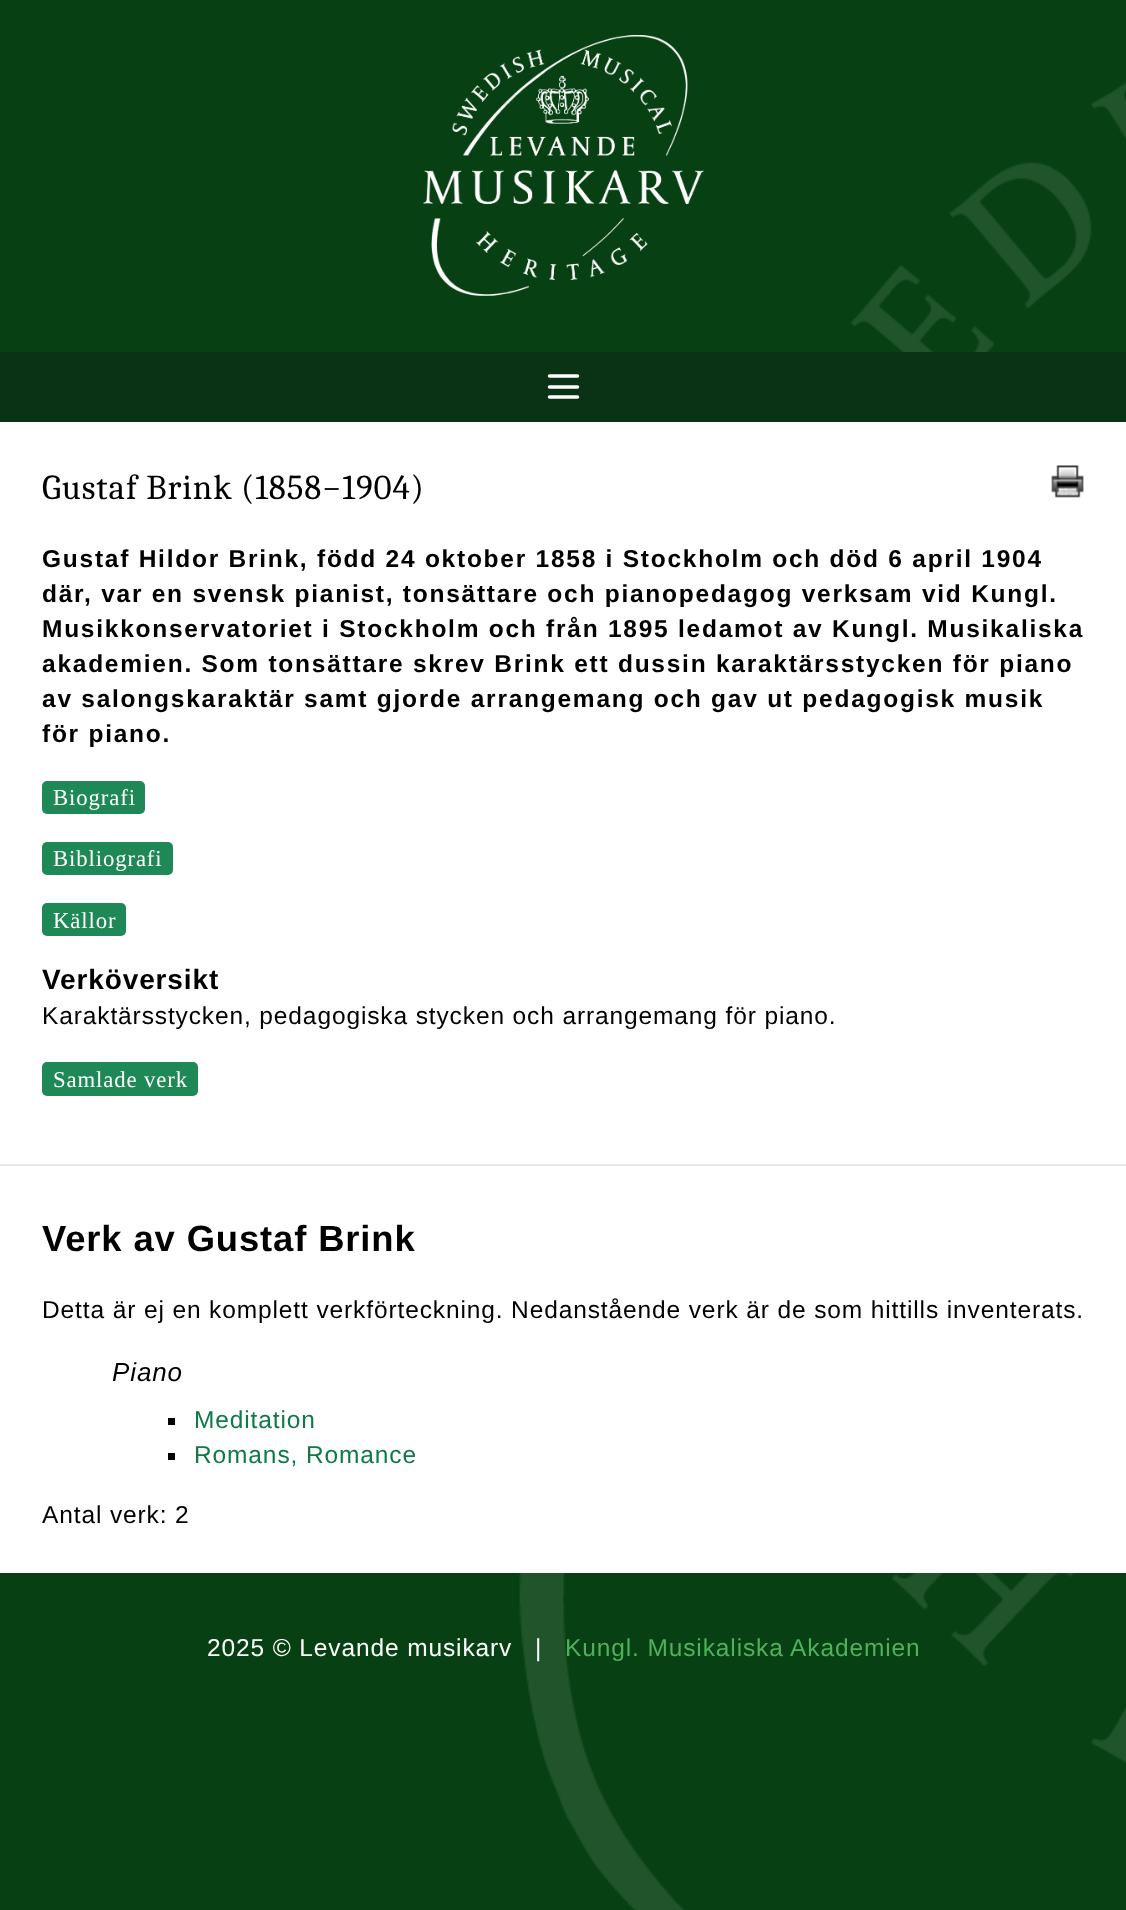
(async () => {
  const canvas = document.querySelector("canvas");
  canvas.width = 1126;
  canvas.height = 1910;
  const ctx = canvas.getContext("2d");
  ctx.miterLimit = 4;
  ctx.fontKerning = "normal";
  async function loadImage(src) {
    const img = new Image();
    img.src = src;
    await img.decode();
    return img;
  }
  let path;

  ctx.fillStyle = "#074113";
  ctx.fillRect(0, 0, 1126, 1910);
  ctx.drawImage(await loadImage("img/2.png"), 519, 82, 607, 1828);
  ctx.drawImage(await loadImage("img/1.png"), 423, 35, 281, 261);
  ctx.fillStyle = "#093314";
  ctx.fillRect(0, 352, 1126, 70);
  path = new Path2D("M549.5 376H577.5M549.5 387H577.5M549.5 397H577.5");
  ctx.strokeStyle = "#ffffff";
  ctx.lineWidth = 3.5;
  ctx.lineCap = "round";
  ctx.lineJoin = "round";
  ctx.stroke(path);
  ctx.fillStyle = "#ffffff";
  ctx.fillRect(0, 422, 1126, 1151);
  ctx.drawImage(await loadImage("img/3.png"), 1051, 465, 33, 33);
  ctx.fillStyle = "#1e8957";
  ctx.beginPath();
  ctx.roundRect(42, 781, 103, 33, 5);
  ctx.fill();
  ctx.beginPath();
  ctx.roundRect(42, 842, 131, 33, 5);
  ctx.fill();
  ctx.beginPath();
  ctx.roundRect(42, 903, 84, 33, 5);
  ctx.fill();
  ctx.beginPath();
  ctx.roundRect(42, 1062, 156, 34, 5);
  ctx.fill();
  for (const [x, y, w, h, color] of [
    [0, 1164, 1126, 2, "#e5e7eb"],
    [168, 1418, 7, 7, "#000000"],
    [168, 1453, 7, 7, "#000000"],
  ]) {
    ctx.fillStyle = color;
    ctx.fillRect(x, y, w, h);
  }
  ctx.letterSpacing = "0.88px";
  ctx.font = "35px Caladea";
  ctx.fillText("Gustaf Brink (1858−1904)", 42, 499);
  ctx.letterSpacing = "1.75px";
  ctx.font = "bold 24.5px Liberation Sans";
  for (const [text, x, y] of [
    ["Gustaf Hildor Brink, född 24 oktober 1858 i Stockholm och död 6 april 1904", 42, 567],
    ["där, var en svensk pianist, tonsättare och pianopedagog verksam vid Kungl.", 42, 602],
    ["Musikkonservatoriet i Stockholm och från 1895 ledamot av Kungl. Musikaliska", 42, 637],
    ["akademien. Som tonsättare skrev Brink ett dussin karaktärsstycken för piano", 42, 672],
    ["av salongskaraktär samt gjorde arrangemang och gav ut pedagogisk musik", 42, 707],
    ["för piano.", 42, 742],
  ]) {
    ctx.fillText(text, x, y);
  }
  ctx.letterSpacing = "0.88px";
  ctx.font = "22.75px Liberation Serif";
  ctx.fillStyle = "#ffffff";
  for (const [text, x, y] of [
    ["Biografi", 53, 805],
    ["Bibliografi", 53, 866],
    ["Källor", 53, 928],
  ]) {
    ctx.fillText(text, x, y);
  }
  ctx.font = "bold 28px Liberation Sans";
  ctx.fillStyle = "#000000";
  ctx.fillText("Verköversikt", 42, 989);
  ctx.font = "24.5px Liberation Sans";
  ctx.fillText("Karaktärsstycken, pedagogiska stycken och arrangemang för piano.", 42, 1024);
  ctx.font = "22.75px Liberation Serif";
  ctx.fillStyle = "#ffffff";
  ctx.fillText("Samlade verk", 53, 1087);
  ctx.font = "bold 36.4px Liberation Sans";
  ctx.fillStyle = "#000000";
  ctx.fillText("Verk av Gustaf Brink", 42, 1251);
  ctx.font = "24.5px Liberation Sans";
  ctx.fillText("Detta är ej en komplett verkförteckning. Nedanstående verk är de som hittills inventerats.", 42, 1318);
  ctx.font = "italic 26px Liberation Sans";
  ctx.fillText("Piano", 112, 1381);
  ctx.font = "24.5px Liberation Sans";
  ctx.fillStyle = "#107948";
  ctx.fillText("Meditation", 194, 1428);
  ctx.fillText("Romans, Romance", 194, 1463);
  ctx.fillStyle = "#000000";
  ctx.fillText("Antal verk: 2", 42, 1523);
  ctx.fillStyle = "#ffffff";
  ctx.fillText("2025 © Levande musikarv", 207, 1656);
  ctx.fillText("|", 535, 1656);
  ctx.fillStyle = "#50b05b";
  ctx.fillText("Kungl. Musikaliska Akademien", 565, 1656);
})();
